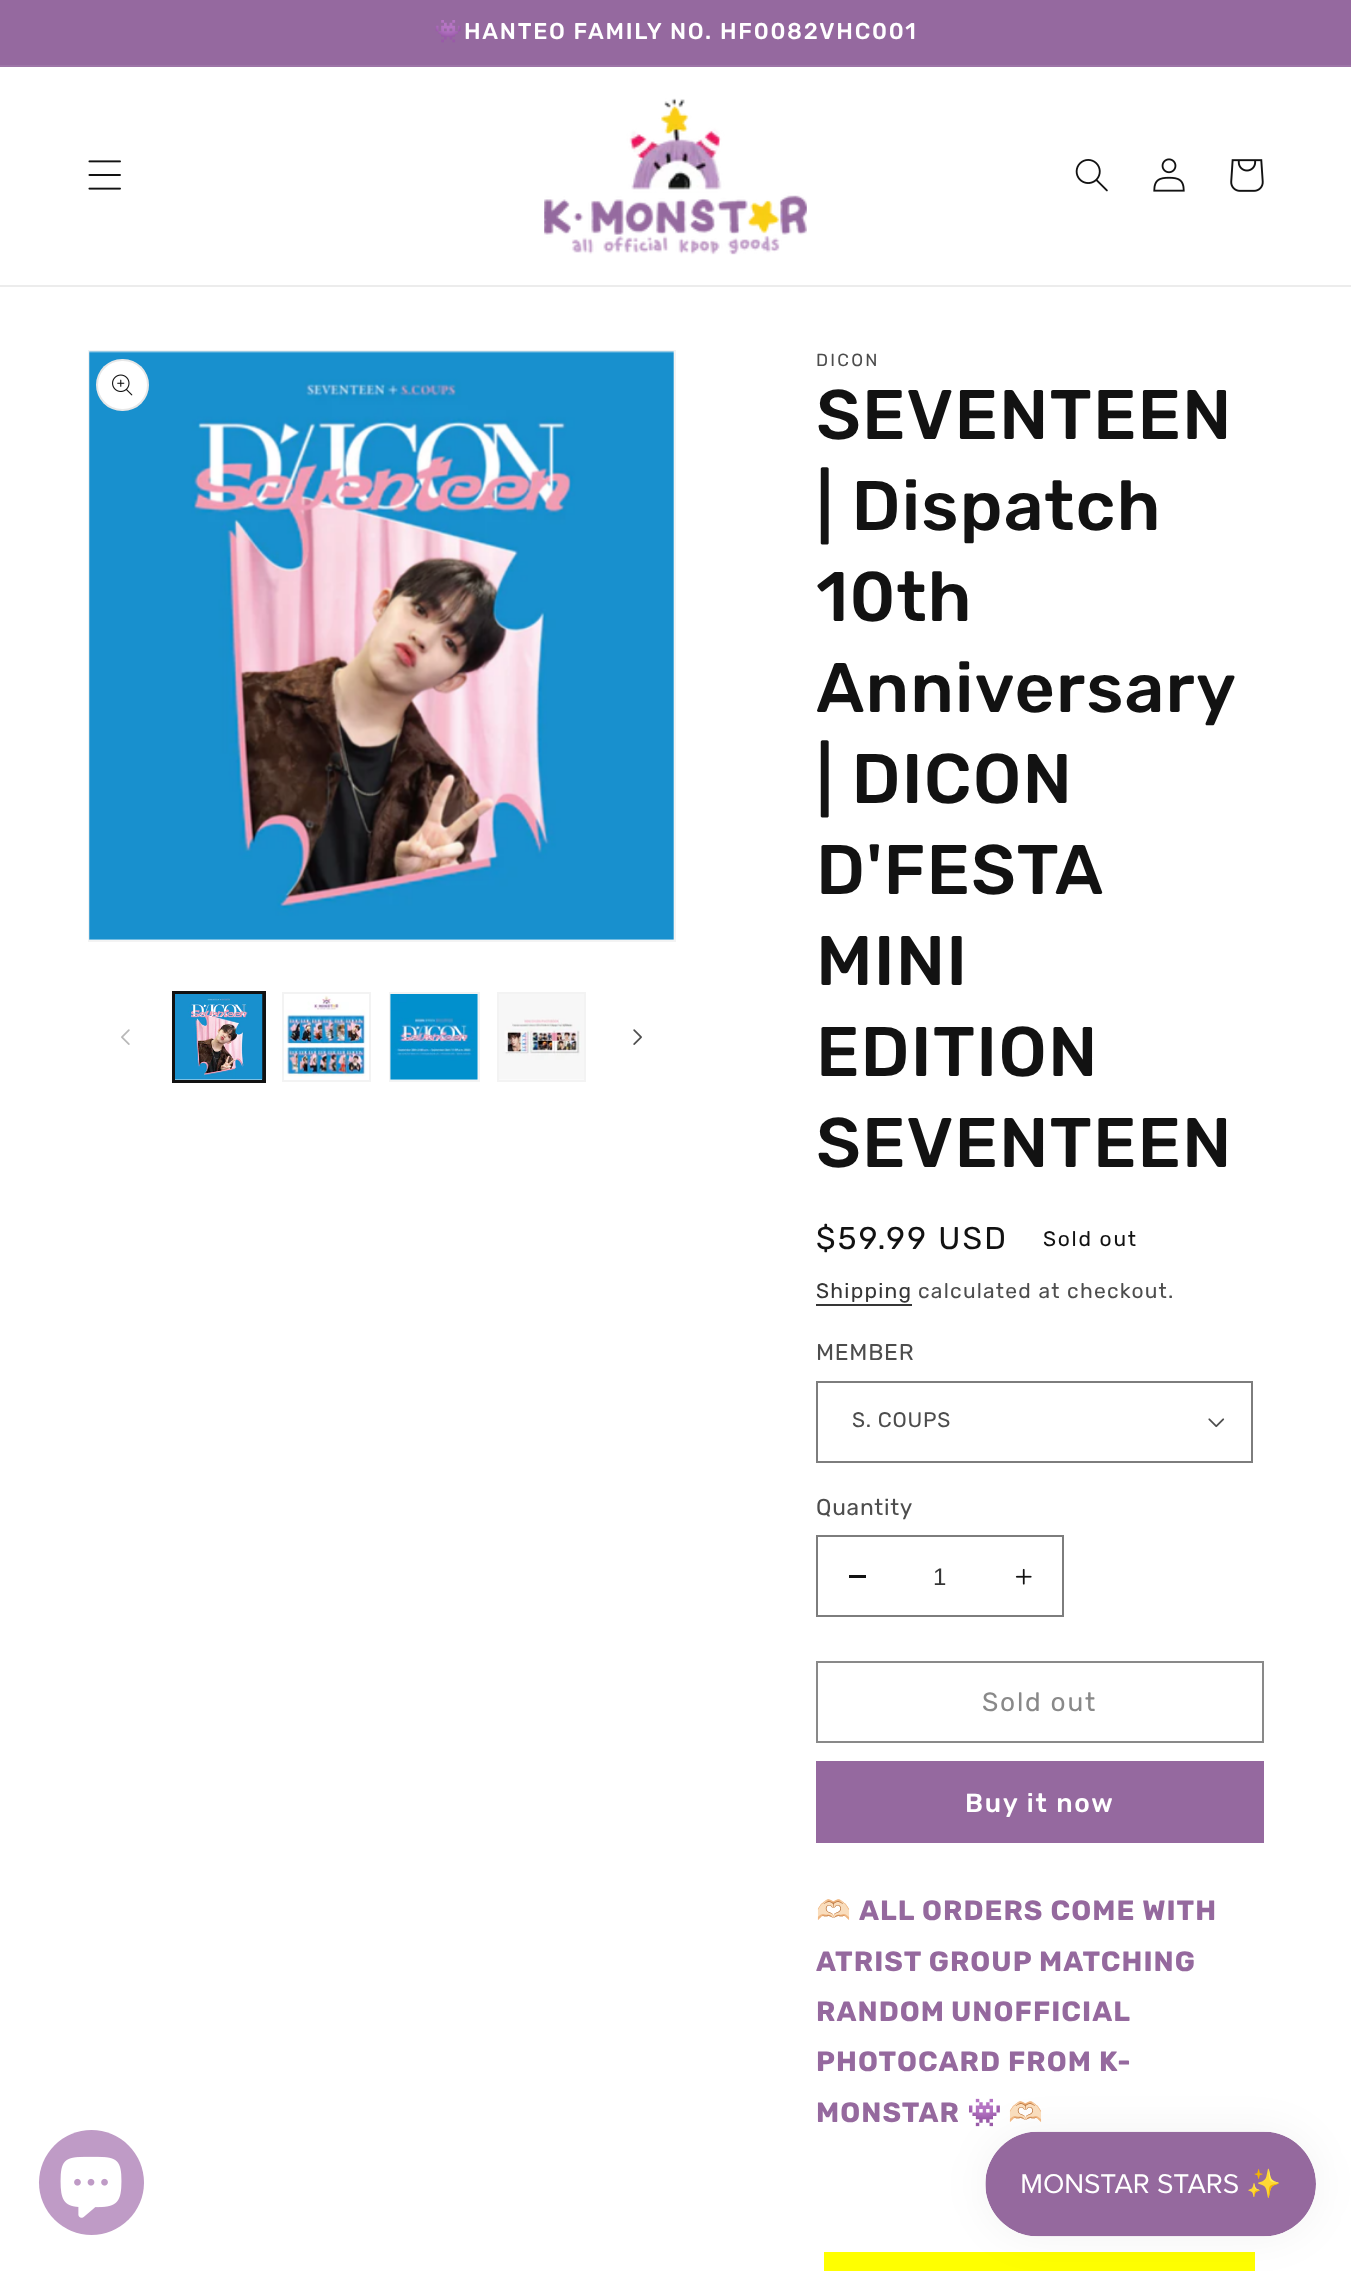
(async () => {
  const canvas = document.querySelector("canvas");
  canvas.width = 1351;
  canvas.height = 2271;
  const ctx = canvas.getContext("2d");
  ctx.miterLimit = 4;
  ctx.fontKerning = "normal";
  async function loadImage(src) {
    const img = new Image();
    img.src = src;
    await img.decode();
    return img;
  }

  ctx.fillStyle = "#ffffff";
  ctx.fillRect(0, 0, 1351, 2271);
  for (const [x, y, w, h, color] of [
    [0, 0, 1351, 65, "#95699f"],
    [0, 65, 1351, 2, "#9d75a7"],
    [0, 285, 1351, 2, "#ececec"],
  ]) {
    ctx.fillStyle = color;
    ctx.fillRect(x, y, w, h);
  }
  ctx.drawImage(await loadImage("img/1.png"), 88, 160, 33, 30);
  ctx.drawImage(await loadImage("img/2.png"), 544, 98, 263, 157);
  ctx.drawImage(await loadImage("img/3.png"), 1075, 159, 33, 33);
  ctx.drawImage(await loadImage("img/4.png"), 1153, 158, 32, 34);
  ctx.drawImage(await loadImage("img/5.png"), 1230, 159, 34, 33);
  ctx.strokeStyle = "#f3f3f3";
  ctx.lineWidth = 2;
  ctx.strokeRect(89, 351, 586, 590);
  ctx.drawImage(await loadImage("img/6.png"), 89, 351, 585, 589);
  ctx.fillStyle = "#ffffff";
  ctx.beginPath();
  ctx.roundRect(96, 359, 53, 52, 26);
  ctx.fill();
  ctx.beginPath();
  ctx.roundRect(97, 360, 51, 50, 25);
  ctx.strokeStyle = "rgba(18, 18, 18, 0.1)";
  ctx.stroke();
  ctx.drawImage(await loadImage("img/7.png"), 112, 374, 21, 22);
  ctx.drawImage(await loadImage("img/8.png"), 121, 1029, 9, 16);
  ctx.strokeStyle = "#121212";
  ctx.strokeRect(173, 992, 92, 90);
  ctx.strokeRect(174, 993, 89, 88);
  ctx.drawImage(await loadImage("img/9.png"), 175, 994, 88, 86);
  ctx.strokeStyle = "#f3f3f3";
  ctx.strokeRect(283, 993, 87, 88);
  ctx.drawImage(await loadImage("img/10.png"), 284, 995, 82, 82);
  ctx.strokeRect(390, 993, 89, 88);
  ctx.drawImage(await loadImage("img/11.png"), 390, 994, 88, 86);
  ctx.strokeRect(498, 993, 87, 88);
  ctx.drawImage(await loadImage("img/12.png"), 499, 994, 85, 86);
  ctx.drawImage(await loadImage("img/13.png"), 633, 1029, 9, 16);
  ctx.fillStyle = "#363636";
  ctx.fillRect(816, 1304, 96, 2);
  ctx.drawImage(await loadImage("img/14.png"), 1208, 1418, 17, 10);
  ctx.strokeStyle = "#7d7d7d";
  ctx.strokeRect(817, 1382, 435, 80);
  ctx.fillStyle = "#121212";
  ctx.fillRect(849, 1575, 17, 3);
  ctx.drawImage(await loadImage("img/15.png"), 1015, 1568, 17, 17);
  ctx.strokeRect(817, 1536, 246, 80);
  ctx.strokeStyle = "#898989";
  ctx.strokeRect(817, 1662, 446, 80);
  ctx.fillStyle = "#95699f";
  ctx.fillRect(816, 1761, 448, 82);
  ctx.fillStyle = "#ffff00";
  ctx.fillRect(824, 2252, 431, 19);
  ctx.fillStyle = "#bf9bc6";
  ctx.beginPath();
  ctx.arc(91.5, 2182.5, 52.5, 0, Math.PI * 2);
  ctx.fill();
  ctx.drawImage(await loadImage("img/16.png"), 60, 2156, 62, 62);
  ctx.fillStyle = "rgba(0, 0, 0, 0.05)";
  ctx.filter = "blur(22px)";
  ctx.beginPath();
  ctx.roundRect(985, 2132, 331, 105, 52.5);
  ctx.fill();
  ctx.filter = "none";
  ctx.drawImage(await loadImage("img/17.png"), 985, 2131, 331, 106);
  ctx.letterSpacing = "1.75px";
  ctx.font = "22.75px Noto Color Emoji";
  ctx.fillStyle = "#ffffff";
  ctx.fillText("👾", 434, 39);
  ctx.font = "500 22.75px Rubik";
  ctx.fillText("HANTEO FAMILY NO. HF0082VHC001", 464, 39);
  ctx.letterSpacing = "2.25px";
  ctx.font = "17.5px Rubik";
  ctx.fillStyle = "#4d4d4d";
  ctx.fillText("DICON", 816, 366);
  ctx.letterSpacing = "1.05px";
  ctx.font = "500 70px Rubik";
  ctx.fillStyle = "#121212";
  for (const [text, x, y] of [
    ["SEVENTEEN", 816, 439],
    ["| Dispatch", 816, 530],
    ["10th", 816, 621],
    ["Anniversary", 816, 712],
    ["| DICON", 816, 803],
    ["D'FESTA", 816, 894],
    ["MINI", 816, 985],
    ["EDITION", 816, 1076],
    ["SEVENTEEN", 816, 1167],
  ]) {
    ctx.fillText(text, x, y);
  }
  ctx.letterSpacing = "2.25px";
  ctx.font = "31.5px Rubik";
  ctx.fillText("$59.99 USD", 816, 1249);
  ctx.letterSpacing = "1.75px";
  ctx.font = "21px Rubik";
  ctx.fillText("Sold out", 1043, 1246);
  ctx.letterSpacing = "1.25px";
  ctx.fillStyle = "#363636";
  ctx.fillText("Shipping", 816, 1298);
  ctx.fillStyle = "#4d4d4d";
  ctx.fillText("calculated at checkout.", 918, 1298);
  ctx.letterSpacing = "0.75px";
  ctx.font = "22.75px Rubik";
  ctx.fillText("MEMBER", 816, 1360);
  ctx.font = "21px Rubik";
  ctx.fillText("S. COUPS", 852, 1427);
  ctx.font = "22.75px Rubik";
  ctx.fillText("Quantity", 816, 1515);
  ctx.letterSpacing = "0px";
  ctx.font = "24px Liberation Sans";
  ctx.fillStyle = "#363636";
  ctx.fillText("1", 933, 1585);
  ctx.letterSpacing = "1.75px";
  ctx.font = "26.25px Rubik";
  ctx.fillStyle = "#898989";
  ctx.fillText("Sold out", 982, 1711);
  ctx.font = "500 26.25px Rubik";
  ctx.fillStyle = "#ffffff";
  ctx.fillText("Buy it now", 965, 1812);
  ctx.letterSpacing = "1.05px";
  ctx.font = "28px Noto Color Emoji";
  ctx.fillStyle = "#4d4d4d";
  ctx.fillText("🫶🏻", 816, 1920);
  ctx.font = "bold 28px Rubik";
  ctx.fillStyle = "#95699e";
  ctx.fillText("ALL ORDERS COME WITH", 859, 1920);
  ctx.fillText("ATRIST GROUP MATCHING", 816, 1971);
  ctx.wordSpacing = "-1px";
  ctx.fillText("RANDOM UNOFFICIAL", 816, 2021);
  ctx.wordSpacing = "0px";
  ctx.fillText("PHOTOCARD FROM K-", 816, 2071);
  ctx.fillText("MONSTAR", 816, 2122);
  ctx.font = "bold 28px Noto Color Emoji";
  ctx.fillStyle = "#4d4d4d";
  ctx.fillText("👾", 967, 2122);
  ctx.fillText("🫶🏻", 1008, 2122);
})();
